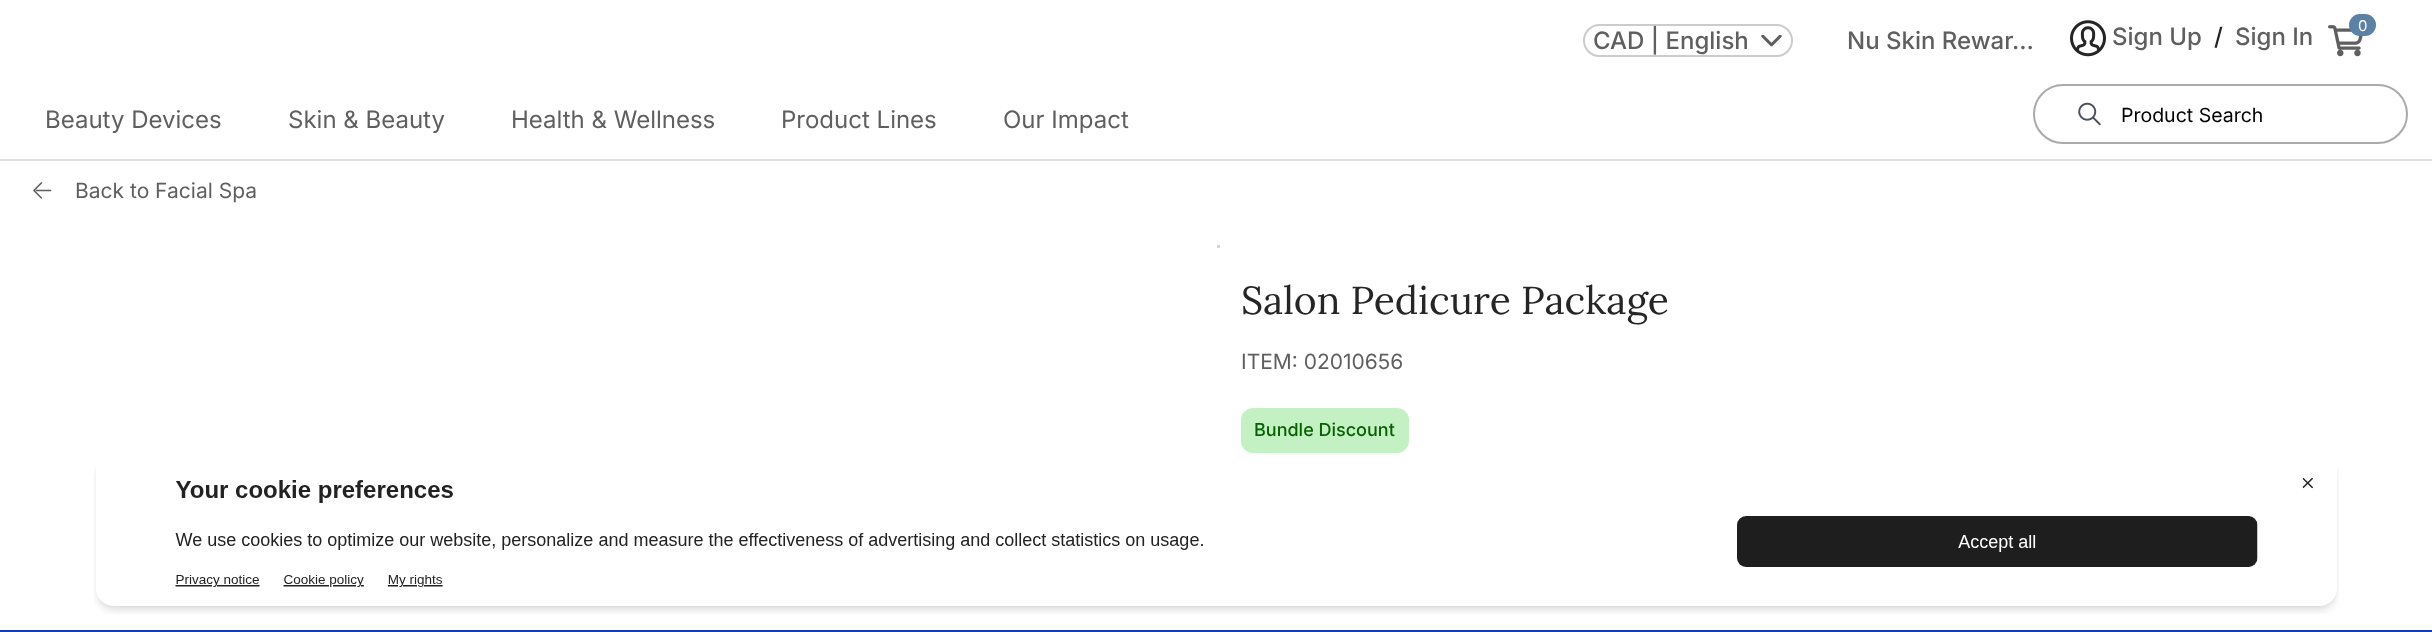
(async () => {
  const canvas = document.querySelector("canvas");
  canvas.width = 2432;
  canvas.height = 632;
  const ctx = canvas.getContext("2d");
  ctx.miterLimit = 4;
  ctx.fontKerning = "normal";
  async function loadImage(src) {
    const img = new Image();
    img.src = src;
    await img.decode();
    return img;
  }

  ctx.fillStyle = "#ffffff";
  ctx.fillRect(0, 0, 2432, 632);
  ctx.beginPath();
  ctx.roundRect(1584, 25, 208, 31, 15.5);
  ctx.strokeStyle = "#cccccc";
  ctx.lineWidth = 2;
  ctx.stroke();
  ctx.drawImage(await loadImage("img/1.png"), 1761, 35, 21, 12);
  ctx.drawImage(await loadImage("img/2.png"), 2070, 20, 36, 37);
  ctx.drawImage(await loadImage("img/3.png"), 2328, 25, 35, 32);
  ctx.fillStyle = "#5b81a5";
  ctx.beginPath();
  ctx.roundRect(2349, 14, 27, 22, 11);
  ctx.fill();
  ctx.fillStyle = "#e0e0e0";
  ctx.fillRect(0, 159, 2432, 2);
  ctx.beginPath();
  ctx.roundRect(2034, 85, 373, 58, 29);
  ctx.strokeStyle = "#aaaaaa";
  ctx.stroke();
  ctx.drawImage(await loadImage("img/4.png"), 2078, 102, 23, 24);
  ctx.drawImage(await loadImage("img/5.png"), 33, 182, 19, 17);
  ctx.fillStyle = "#d6d6d6";
  ctx.fillRect(1217, 245, 3, 3);
  ctx.fillStyle = "#c4f1c4";
  ctx.beginPath();
  ctx.roundRect(1241, 408, 168, 45, 12);
  ctx.fill();
  ctx.drawImage(await loadImage("img/6.png"), 94, 468, 2245, 146);
  ctx.fillStyle = "#123dba";
  ctx.fillRect(0, 630, 2432, 2);
  ctx.font = "500 24px Inter";
  ctx.fillStyle = "#5f5f5f";
  for (const [text, x, y] of [
    ["CAD | English", 1593, 49],
    ["Nu Skin Rewar…", 1847, 49],
    ["Sign Up", 2112, 45],
  ]) {
    ctx.fillText(text, x, y);
  }
  ctx.fillStyle = "#252525";
  ctx.fillText("/", 2214, 45);
  ctx.fillStyle = "#5f5f5f";
  ctx.fillText("Sign In", 2235, 45);
  ctx.font = "15px Inter";
  ctx.fillStyle = "#ffffff";
  ctx.fillText("0", 2358, 31);
  ctx.font = "24px Inter";
  ctx.fillStyle = "#5f5f5f";
  for (const [text, x, y] of [
    ["Beauty Devices", 45, 128],
    ["Skin & Beauty", 288, 128],
    ["Health & Wellness", 511, 128],
    ["Product Lines", 781, 128],
    ["Our Impact", 1003, 128],
  ]) {
    ctx.fillText(text, x, y);
  }
  ctx.font = "19.5px Inter";
  ctx.fillStyle = "#000000";
  ctx.fillText("Product Search", 2121, 122);
  ctx.font = "21px Inter";
  ctx.fillStyle = "#5f5f5f";
  ctx.fillText("Back to Facial Spa", 75, 198);
  ctx.font = "39px Lora";
  ctx.fillStyle = "#252525";
  ctx.fillText("Salon Pedicure Package", 1241, 314);
  ctx.font = "21px Inter";
  ctx.fillStyle = "#5f5f5f";
  ctx.fillText("ITEM: 02010656", 1241, 369);
  ctx.font = "500 18px Inter";
  ctx.fillStyle = "#066100";
  ctx.fillText("Bundle Discount", 1254, 436);
})();
